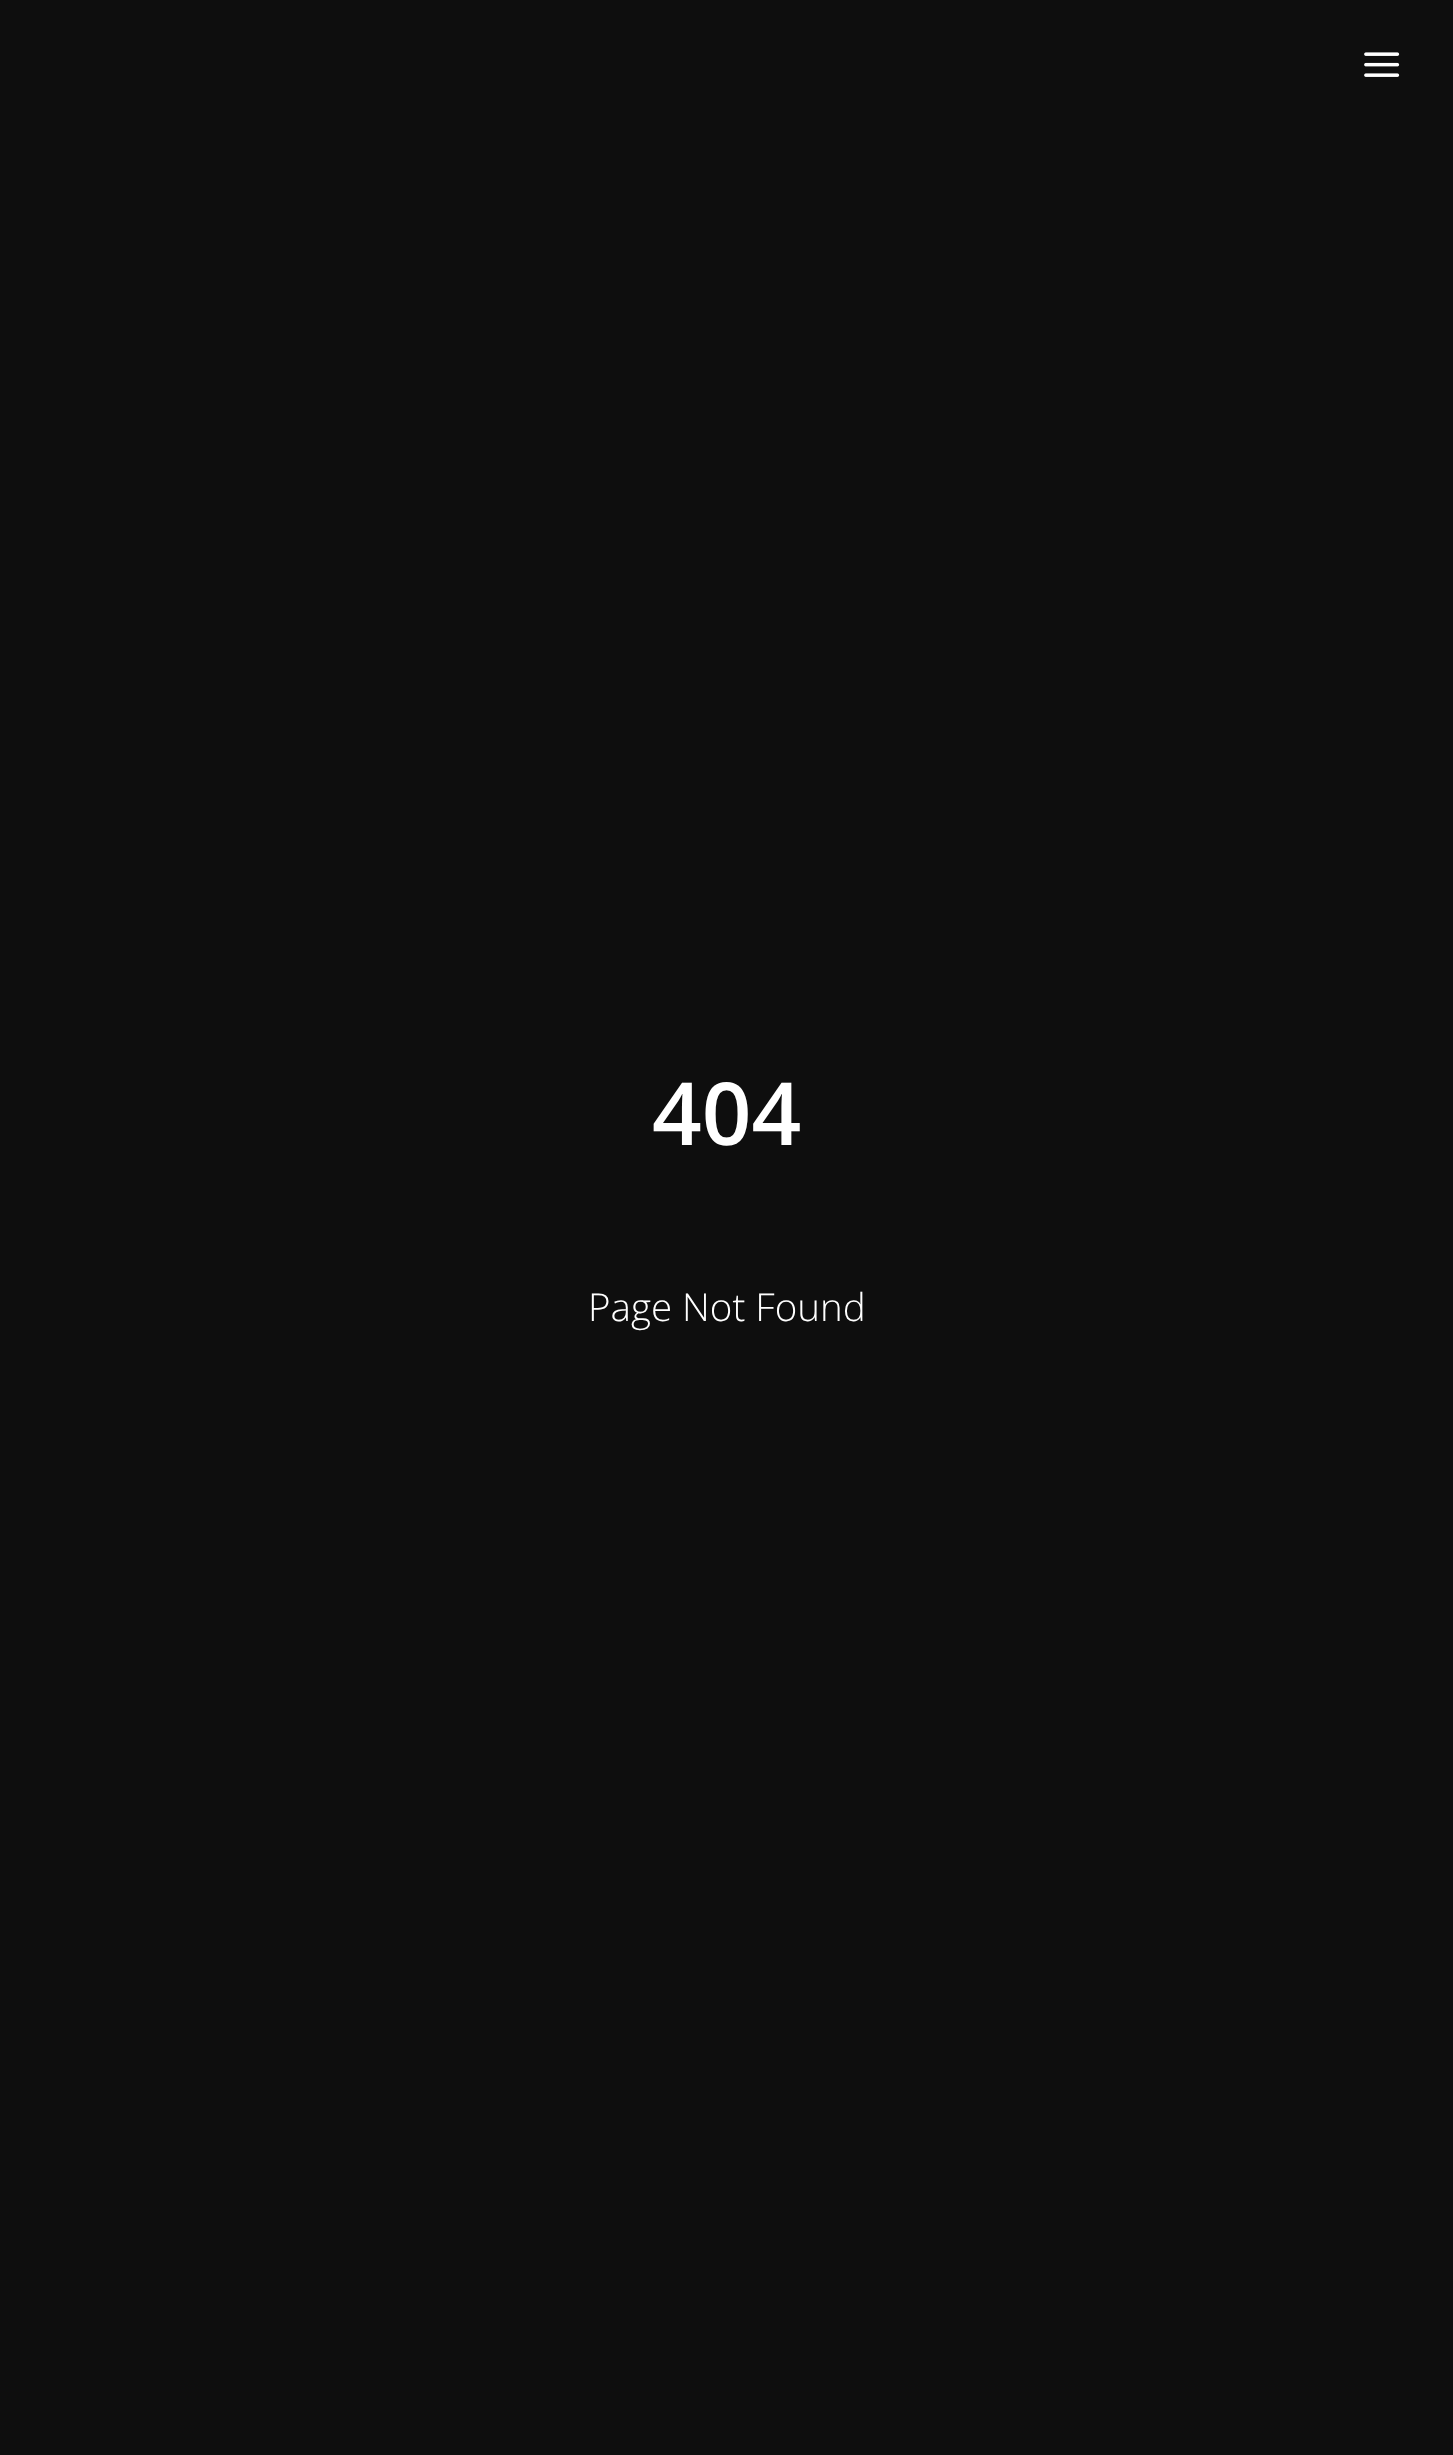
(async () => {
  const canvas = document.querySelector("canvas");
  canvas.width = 1453;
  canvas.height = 2455;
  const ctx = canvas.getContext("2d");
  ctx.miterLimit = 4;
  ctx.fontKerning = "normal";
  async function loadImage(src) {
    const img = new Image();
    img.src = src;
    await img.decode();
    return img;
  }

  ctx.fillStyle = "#0e0e0e";
  ctx.fillRect(0, 0, 1453, 2455);
  ctx.drawImage(await loadImage("img/1.png"), 1364, 52, 36, 25);
  ctx.font = "600 87px Open Sans";
  ctx.fillStyle = "#ffffff";
  ctx.fillText("404", 652, 1145);
  ctx.font = "300 38.5px Open Sans";
  ctx.fillText("Page Not Found", 588, 1321);
})();
